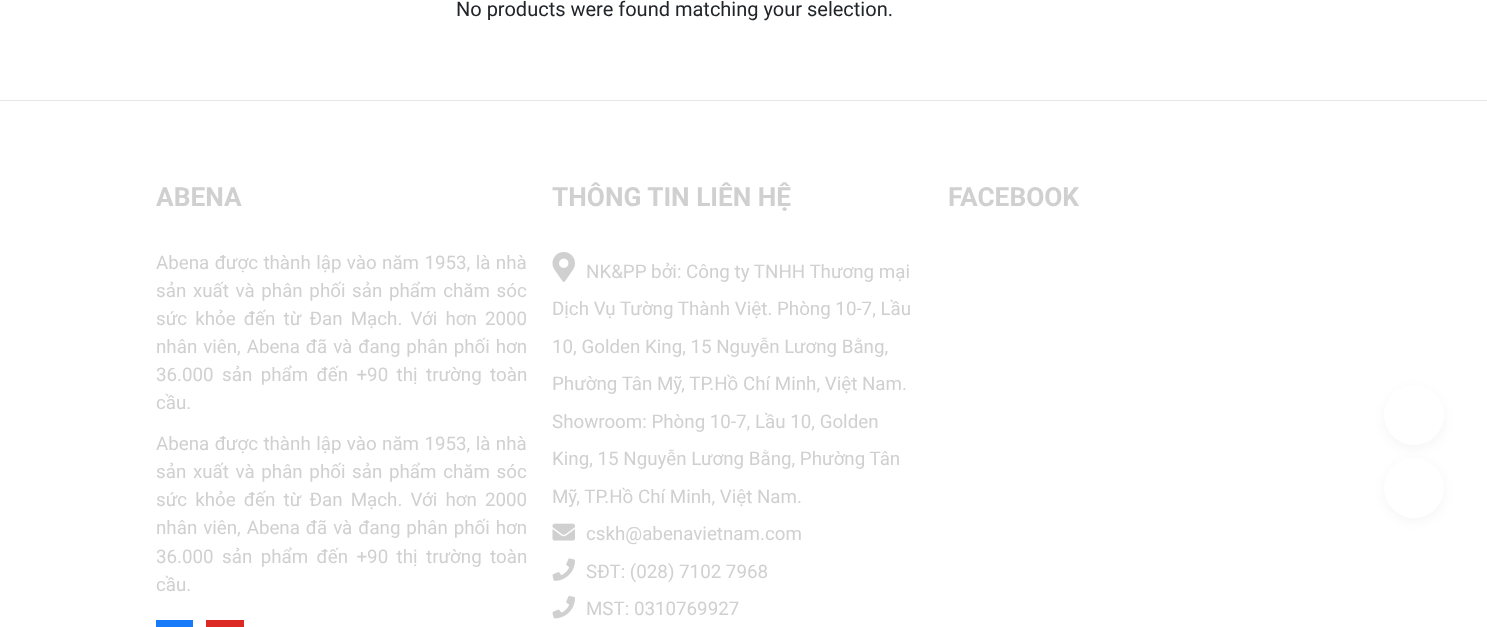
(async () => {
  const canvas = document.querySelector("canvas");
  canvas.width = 1487;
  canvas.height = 627;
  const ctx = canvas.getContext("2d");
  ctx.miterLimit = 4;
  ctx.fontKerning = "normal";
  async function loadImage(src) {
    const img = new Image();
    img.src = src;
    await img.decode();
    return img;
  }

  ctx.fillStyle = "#ffffff";
  ctx.fillRect(0, 0, 1487, 627);
  for (const [x, y, w, h, color] of [
    [0, 100, 1487, 1, "#e7e7e7"],
    [156, 620, 37, 7, "#167af9"],
    [206, 620, 38, 7, "#dd2923"],
  ]) {
    ctx.fillStyle = color;
    ctx.fillRect(x, y, w, h);
  }
  ctx.drawImage(await loadImage("img/1.png"), 552, 252, 23, 30);
  ctx.drawImage(await loadImage("img/2.png"), 552, 523, 23, 18);
  ctx.drawImage(await loadImage("img/3.png"), 552, 558, 23, 23);
  ctx.drawImage(await loadImage("img/4.png"), 552, 596, 23, 23);
  ctx.fillStyle = "rgba(0, 0, 0, 0.04)";
  ctx.filter = "blur(6px)";
  ctx.beginPath();
  ctx.roundRect(1384, 461, 60, 60, 30);
  ctx.fill();
  ctx.filter = "none";
  ctx.fillStyle = "#ffffff";
  ctx.beginPath();
  ctx.arc(1414, 488, 30, 0, Math.PI * 2);
  ctx.fill();
  ctx.fillStyle = "rgba(0, 0, 0, 0.04)";
  ctx.filter = "blur(6px)";
  ctx.beginPath();
  ctx.roundRect(1384, 389, 60, 60, 30);
  ctx.fill();
  ctx.filter = "none";
  ctx.fillStyle = "#ffffff";
  ctx.beginPath();
  ctx.arc(1414, 415, 30, 0, Math.PI * 2);
  ctx.fill();
  ctx.font = "20px Roboto";
  ctx.fillStyle = "#212529";
  ctx.fillText("No products were found matching your selection.", 456, 16);
  ctx.font = "bold 26.25px Roboto";
  ctx.fillStyle = "#d0d0d0";
  ctx.fillText("ABENA", 156, 206);
  ctx.wordSpacing = "0.75px";
  ctx.font = "18.75px Roboto";
  ctx.fillText("Abena được thành lập vào năm 1953, là nhà", 156, 269);
  ctx.wordSpacing = "2px";
  ctx.fillText("sản xuất và phân phối sản phẩm chăm sóc", 156, 297);
  ctx.wordSpacing = "3.5px";
  ctx.fillText("sức khỏe đến từ Đan Mạch. Với hơn 2000", 156, 325);
  ctx.wordSpacing = "1.25px";
  ctx.fillText("nhân viên, Abena đã và đang phân phối hơn", 156, 353);
  ctx.wordSpacing = "3.75px";
  ctx.fillText("36.000 sản phẩm đến +90 thị trường toàn", 156, 381);
  ctx.wordSpacing = "0px";
  ctx.fillText("cầu.", 156, 409);
  ctx.wordSpacing = "0.75px";
  ctx.fillText("Abena được thành lập vào năm 1953, là nhà", 156, 450);
  ctx.wordSpacing = "2px";
  ctx.fillText("sản xuất và phân phối sản phẩm chăm sóc", 156, 478);
  ctx.wordSpacing = "3.5px";
  ctx.fillText("sức khỏe đến từ Đan Mạch. Với hơn 2000", 156, 506);
  ctx.wordSpacing = "1.25px";
  ctx.fillText("nhân viên, Abena đã và đang phân phối hơn", 156, 534);
  ctx.wordSpacing = "3.75px";
  ctx.fillText("36.000 sản phẩm đến +90 thị trường toàn", 156, 563);
  ctx.wordSpacing = "0px";
  ctx.fillText("cầu.", 156, 591);
  ctx.font = "bold 26.25px Roboto";
  ctx.fillText("THÔNG TIN LIÊN HỆ", 552, 206);
  ctx.font = "18.75px Roboto";
  for (const [text, x, y] of [
    ["NK&PP bởi: Công ty TNHH Thương mại", 586, 278],
    ["Dịch Vụ Tường Thành Việt. Phòng 10-7, Lầu", 552, 315],
    ["10, Golden King, 15 Nguyễn Lương Bằng,", 552, 353],
    ["Phường Tân Mỹ, TP.Hồ Chí Minh, Việt Nam.", 552, 390],
    ["Showroom: Phòng 10-7, Lầu 10, Golden", 552, 428],
    ["King, 15 Nguyễn Lương Bằng, Phường Tân", 552, 465],
    ["Mỹ, TP.Hồ Chí Minh, Việt Nam.", 552, 503],
    ["cskh@abenavietnam.com", 586, 540],
    ["SĐT: (028) 7102 7968", 586, 578],
    ["MST: 0310769927", 586, 615],
  ]) {
    ctx.fillText(text, x, y);
  }
  ctx.font = "bold 26.25px Roboto";
  ctx.fillText("FACEBOOK", 948, 206);
})();
